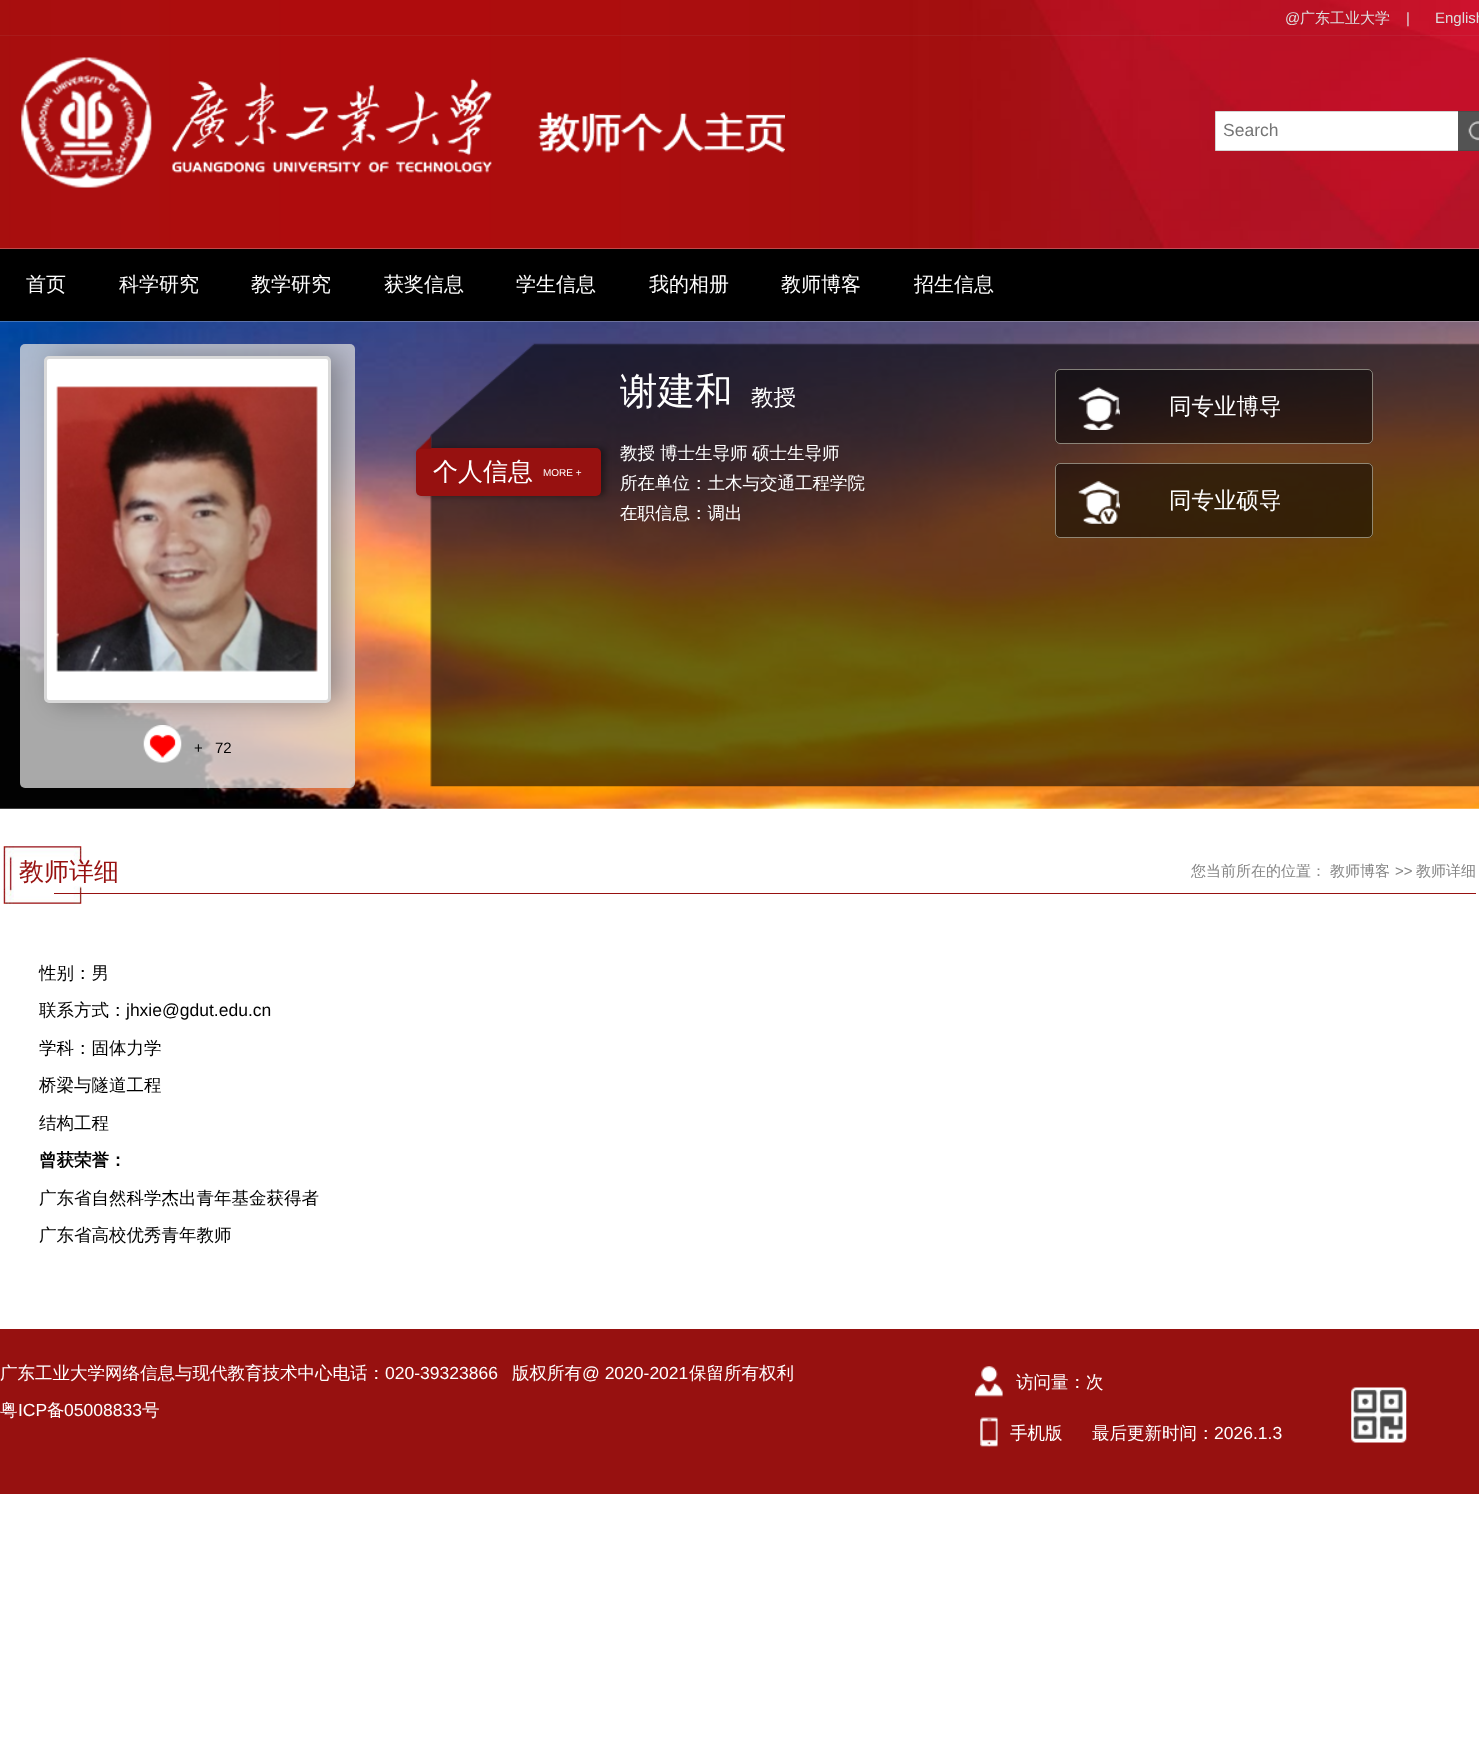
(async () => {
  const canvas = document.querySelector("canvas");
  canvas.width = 1479;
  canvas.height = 1755;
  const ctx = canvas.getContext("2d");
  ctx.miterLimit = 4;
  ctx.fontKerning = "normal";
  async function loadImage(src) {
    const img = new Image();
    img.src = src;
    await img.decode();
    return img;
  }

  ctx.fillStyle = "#ffffff";
  ctx.fillRect(0, 0, 1479, 1755);
  ctx.drawImage(await loadImage("img/1.png"), 0, 0, 1479, 249);
  ctx.fillStyle = "rgba(185, 185, 185, 0.08)";
  ctx.fillRect(0, 35, 1479, 1);
  ctx.drawImage(await loadImage("img/2.png"), 21, 57, 764, 131);
  ctx.fillStyle = "#ffffff";
  ctx.beginPath();
  ctx.rect(1215.5, 111.5, 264, 39);
  ctx.fill();
  ctx.strokeStyle = "#d4d4d4";
  ctx.stroke();
  ctx.fillStyle = "rgba(40, 40, 40, 0.8)";
  ctx.fillRect(1458, 111, 21, 40);
  ctx.drawImage(await loadImage("img/3.png"), 1468, 121, 11, 20);
  ctx.drawImage(await loadImage("img/4.png"), 0, 321, 1479, 488);
  ctx.fillStyle = "rgba(220, 220, 220, 0.77)";
  ctx.beginPath();
  ctx.roundRect(20, 344, 335, 444, 5);
  ctx.fill();
  ctx.save();
  ctx.beginPath();
  ctx.roundRect(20, 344, 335, 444, 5);
  ctx.clip();
  ctx.fillStyle = "rgba(0, 0, 0, 0.3)";
  ctx.filter = "blur(13px)";
  ctx.beginPath();
  ctx.roundRect(53, 356, 287, 347, 5);
  ctx.fill();
  ctx.filter = "none";
  ctx.restore();
  ctx.fillStyle = "#000000";
  ctx.fillRect(0, 249, 1479, 72);
  ctx.drawImage(await loadImage("img/5.png"), 430, 343, 1049, 444);
  ctx.fillStyle = "rgba(0, 0, 0, 0.4)";
  ctx.filter = "blur(3px)";
  ctx.beginPath();
  ctx.roundRect(420, 448, 185, 48, 5);
  ctx.fill();
  ctx.filter = "none";
  ctx.fillStyle = "#971110";
  ctx.beginPath();
  ctx.roundRect(416, 448, 185, 48, 5);
  ctx.fill();
  ctx.drawImage(await loadImage("img/6.png"), 418, 436, 14, 13);
  ctx.fillStyle = "rgba(0, 0, 0, 0.5)";
  ctx.beginPath();
  ctx.roundRect(1055, 369, 318, 75, 5);
  ctx.fill();
  ctx.beginPath();
  ctx.roundRect(1055.5, 369.5, 317, 74, 4.5);
  ctx.strokeStyle = "rgba(223, 223, 205, 0.54)";
  ctx.stroke();
  ctx.drawImage(await loadImage("img/7.png"), 1078, 387, 42, 43);
  ctx.beginPath();
  ctx.roundRect(1055, 463, 318, 75, 5);
  ctx.fill();
  ctx.beginPath();
  ctx.roundRect(1055.5, 463.5, 317, 74, 4.5);
  ctx.stroke();
  ctx.drawImage(await loadImage("img/8.png"), 1078, 481, 42, 43);
  ctx.fillStyle = "#ffffff";
  ctx.beginPath();
  ctx.roundRect(45.5, 357.5, 284, 344, 3.5);
  ctx.fill();
  ctx.strokeStyle = "#d9d9d9";
  ctx.lineWidth = 3;
  ctx.stroke();
  ctx.drawImage(await loadImage("img/9.png"), 56, 386, 262, 286);
  ctx.drawImage(await loadImage("img/10.png"), 143, 725, 39, 38);
  ctx.drawImage(await loadImage("img/11.png"), 3, 846, 79, 58);
  ctx.fillStyle = "#971110";
  ctx.fillRect(54, 893, 1422, 1);
  ctx.fillRect(0, 1329, 1479, 165);
  ctx.drawImage(await loadImage("img/12.png"), 975, 1366, 28, 31);
  ctx.drawImage(await loadImage("img/13.png"), 980, 1417, 18, 30);
  ctx.drawImage(await loadImage("img/14.png"), 1351, 1387, 56, 56);
  ctx.font = "15px Liberation Sans";
  ctx.fillStyle = "#dedede";
  ctx.fillText("@", 1285, 23);
  ctx.font = "500 15px WenQuanYi Zen Hei";
  ctx.fillText("广东工业大学", 1300, 23);
  ctx.font = "15px Liberation Sans";
  ctx.fillText("|", 1406, 23);
  ctx.fillText("English", 1435, 23);
  ctx.font = "17.5px Liberation Sans";
  ctx.fillStyle = "#757575";
  ctx.fillText("Search", 1223, 136);
  ctx.font = "500 20px WenQuanYi Zen Hei";
  ctx.fillStyle = "#ffffff";
  for (const [text, x, y] of [
    ["首页", 26, 291],
    ["科学研究", 119, 291],
    ["教学研究", 251, 291],
    ["获奖信息", 384, 291],
    ["学生信息", 516, 291],
    ["我的相册", 649, 291],
    ["教师博客", 781, 291],
    ["招生信息", 914, 291],
  ]) {
    ctx.fillText(text, x, y);
  }
  ctx.font = "500 25px WenQuanYi Zen Hei";
  ctx.fillText("个人信息", 433, 480);
  ctx.font = "10px Liberation Sans";
  ctx.fillText("MORE +", 543, 476);
  ctx.font = "500 37.5px WenQuanYi Zen Hei";
  ctx.fillText("谢建和", 620, 404);
  ctx.font = "500 22.5px WenQuanYi Zen Hei";
  ctx.fillText("教授", 751, 405);
  ctx.font = "500 17.5px WenQuanYi Zen Hei";
  for (const [text, x, y] of [
    ["教授", 620, 459],
    ["博士生导师", 660, 459],
    ["硕士生导师", 752, 459],
    ["所在单位：土木与交通工程学院", 620, 489],
    ["在职信息：调出", 620, 519],
  ]) {
    ctx.fillText(text, x, y);
  }
  ctx.font = "500 22.5px WenQuanYi Zen Hei";
  ctx.fillText("同专业博导", 1169, 414);
  ctx.fillText("同专业硕导", 1169, 508);
  ctx.font = "15px Liberation Sans";
  ctx.fillStyle = "#000000";
  ctx.fillText("+", 194, 753);
  ctx.fillText("72", 215, 753);
  ctx.font = "500 25px WenQuanYi Zen Hei";
  ctx.fillStyle = "#971110";
  ctx.fillText("教师详细", 19, 880);
  ctx.font = "500 15px WenQuanYi Zen Hei";
  ctx.fillStyle = "#858585";
  ctx.fillText("您当前所在的位置：", 1191, 876);
  ctx.fillText("教师博客", 1330, 876);
  ctx.font = "15px Liberation Sans";
  ctx.fillText(">>", 1395, 876);
  ctx.font = "500 15px WenQuanYi Zen Hei";
  ctx.fillText("教师详细", 1416, 876);
  ctx.font = "500 17.5px WenQuanYi Zen Hei";
  ctx.fillStyle = "#000000";
  ctx.fillText("性别：男", 39, 979);
  ctx.fillText("联系方式：", 39, 1016);
  ctx.font = "17.5px Liberation Sans";
  ctx.fillText("jhxie@gdut.edu.cn", 126, 1016);
  ctx.font = "500 17.5px WenQuanYi Zen Hei";
  for (const [text, x, y] of [
    ["学科：固体力学", 39, 1054],
    ["桥梁与隧道工程", 39, 1091],
    ["结构工程", 39, 1129],
  ]) {
    ctx.fillText(text, x, y);
  }
  ctx.font = "bold 17.5px WenQuanYi Zen Hei";
  ctx.fillText("曾获荣誉：", 39, 1166);
  ctx.font = "500 17.5px WenQuanYi Zen Hei";
  ctx.fillText("广东省自然科学杰出青年基金获得者", 39, 1204);
  ctx.fillText("广东省高校优秀青年教师", 39, 1241);
  ctx.fillStyle = "#ffffff";
  ctx.fillText("广东工业大学网络信息与现代教育技术中心电话：", 0, 1379);
  ctx.font = "17.5px Liberation Sans";
  ctx.fillText("020-39323866", 385, 1379);
  ctx.font = "500 17.5px WenQuanYi Zen Hei";
  ctx.fillText("版权所有", 512, 1379);
  ctx.font = "17.5px Liberation Sans";
  ctx.fillText("@ 2020-2021", 582, 1379);
  ctx.font = "500 17.5px WenQuanYi Zen Hei";
  ctx.fillText("保留所有权利", 689, 1379);
  ctx.fillText("粤", 0, 1416);
  ctx.font = "17.5px Liberation Sans";
  ctx.fillText("ICP", 18, 1416);
  ctx.font = "500 17.5px WenQuanYi Zen Hei";
  ctx.fillText("备", 47, 1416);
  ctx.font = "17.5px Liberation Sans";
  ctx.fillText("05008833", 64, 1416);
  ctx.font = "500 17.5px WenQuanYi Zen Hei";
  for (const [text, x, y] of [
    ["号", 142, 1416],
    ["访问量：次", 1016, 1388],
    ["手机版", 1010, 1439],
    ["最后更新时间：", 1092, 1439],
  ]) {
    ctx.fillText(text, x, y);
  }
  ctx.font = "17.5px Liberation Sans";
  ctx.fillText("2026.1.3", 1214, 1439);
})();
